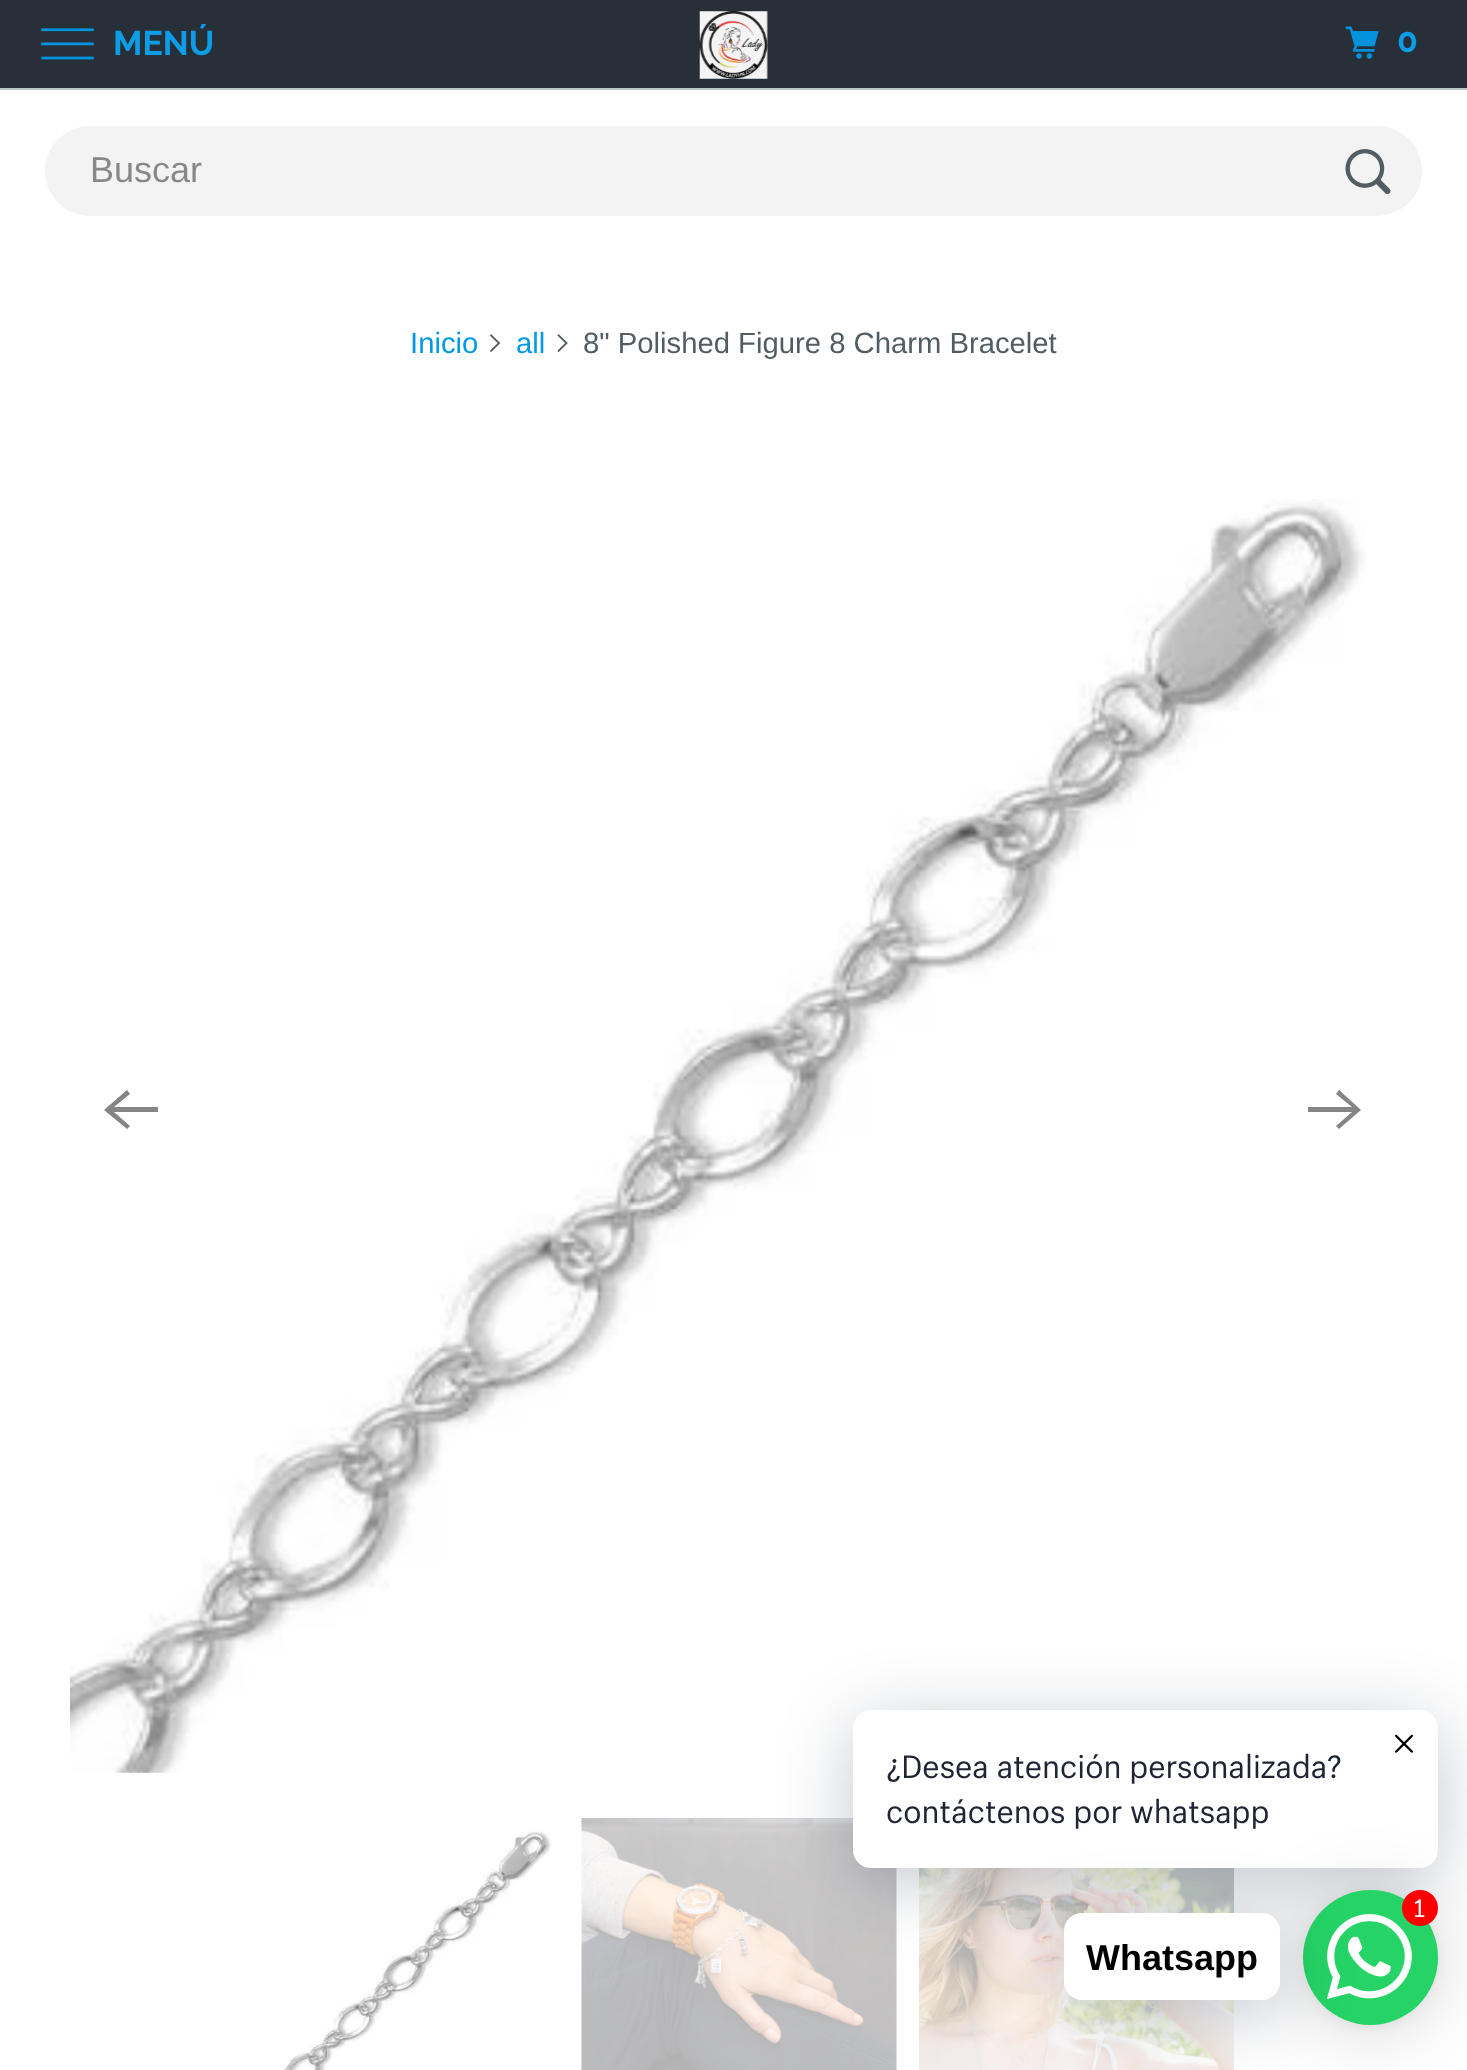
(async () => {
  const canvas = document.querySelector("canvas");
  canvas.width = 1467;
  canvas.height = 2070;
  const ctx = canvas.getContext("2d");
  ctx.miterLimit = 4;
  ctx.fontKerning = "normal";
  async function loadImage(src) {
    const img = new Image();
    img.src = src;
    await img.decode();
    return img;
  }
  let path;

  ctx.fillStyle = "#ffffff";
  ctx.fillRect(0, 0, 1467, 2070);
  ctx.fillStyle = "#273039";
  ctx.fillRect(0, 0, 1467, 88);
  ctx.fillStyle = "#bbc8c8";
  ctx.fillRect(0, 88, 1467, 2);
  ctx.drawImage(await loadImage("img/1.png"), 40, 28, 55, 32);
  ctx.drawImage(await loadImage("img/2.png"), 699, 11, 69, 68);
  ctx.drawImage(await loadImage("img/3.png"), 1345, 26, 34, 33);
  ctx.fillStyle = "#f3f3f3";
  ctx.beginPath();
  ctx.roundRect(45, 126, 1377, 90, 45);
  ctx.fill();
  ctx.drawImage(await loadImage("img/4.png"), 1345, 149, 46, 45);
  ctx.drawImage(await loadImage("img/5.png"), 489, 334, 12, 18);
  ctx.drawImage(await loadImage("img/6.png"), 557, 334, 11, 18);
  ctx.drawImage(await loadImage("img/7.png"), 70, 499, 1296, 1274);
  ctx.fillStyle = "#858585";
  path = new Path2D("M158 1107H114L130 1094L127 1090L104 1110L127 1129L130 1126L114 1112H158Z");
  ctx.fill(path);
  path = new Path2D("M1308 1112H1352L1336 1126L1339 1129L1361 1110L1339 1090L1336 1094L1352 1107H1308Z");
  ctx.fill(path);
  ctx.drawImage(await loadImage("img/8.png"), 284, 1831, 267, 239);
  ctx.drawImage(await loadImage("img/9.png"), 581, 1818, 316, 252);
  ctx.drawImage(await loadImage("img/10.png"), 919, 1868, 315, 202);
  ctx.fillStyle = "rgba(0, 18, 46, 0.24)";
  ctx.filter = "blur(36px)";
  ctx.beginPath();
  ctx.roundRect(853, 1724, 585, 157, 18);
  ctx.fill();
  ctx.filter = "none";
  ctx.fillStyle = "#ffffff";
  ctx.beginPath();
  ctx.roundRect(853, 1710, 585, 158, 18);
  ctx.fill();
  ctx.drawImage(await loadImage("img/11.png"), 1395, 1734, 18, 19);
  ctx.fillStyle = "rgba(0, 0, 0, 0.16)";
  ctx.filter = "blur(36px)";
  ctx.beginPath();
  ctx.roundRect(1303, 1895, 135, 135, 67.5);
  ctx.fill();
  ctx.filter = "none";
  ctx.fillStyle = "rgba(0, 0, 0, 0.06)";
  ctx.filter = "blur(7px)";
  ctx.beginPath();
  ctx.roundRect(1303, 1892, 135, 135, 67.5);
  ctx.fill();
  ctx.filter = "none";
  ctx.fillStyle = "#25d366";
  ctx.beginPath();
  ctx.arc(1370.5, 1957.5, 67.5, 0, Math.PI * 2);
  ctx.fill();
  ctx.fillStyle = "rgba(0, 18, 46, 0.24)";
  ctx.filter = "blur(36px)";
  ctx.beginPath();
  ctx.roundRect(1064, 1926, 216, 88, 18);
  ctx.fill();
  ctx.filter = "none";
  ctx.drawImage(await loadImage("img/12.png"), 1326, 1914, 86, 85);
  ctx.fillStyle = "#ff0000";
  ctx.beginPath();
  ctx.arc(1420, 1908, 18, 0, Math.PI * 2);
  ctx.fill();
  ctx.fillStyle = "#ffffff";
  ctx.beginPath();
  ctx.roundRect(1064, 1913, 216, 87, 18);
  ctx.fill();
  ctx.font = "bold 34px Raleway";
  ctx.fillStyle = "#0c9de6";
  ctx.fillText("MENÚ", 113, 55);
  ctx.fillText("0", 1397, 52);
  ctx.font = "36px Liberation Sans";
  ctx.fillStyle = "#888888";
  ctx.fillText("Buscar", 90, 182);
  ctx.font = "29.25px Liberation Sans";
  ctx.fillStyle = "#0099e5";
  ctx.fillText("Inicio", 410, 353);
  ctx.fillText("all", 516, 353);
  ctx.fillStyle = "#525d63";
  ctx.fillText("8\" Polished Figure 8 Charm Bracelet", 583, 353);
  ctx.font = "31.5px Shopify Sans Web";
  ctx.fillStyle = "#1e2433";
  ctx.fillText("¿Desea atención personalizada?", 886, 1778);
  ctx.fillText("contáctenos por whatsapp", 886, 1823);
  ctx.font = "25px Shopify Sans Web";
  ctx.fillStyle = "#ffffff";
  ctx.fillText("1", 1414, 1917);
  ctx.font = "bold 36px Liberation Sans";
  ctx.fillStyle = "#000000";
  ctx.fillText("Whatsapp", 1086, 1970);
})();
